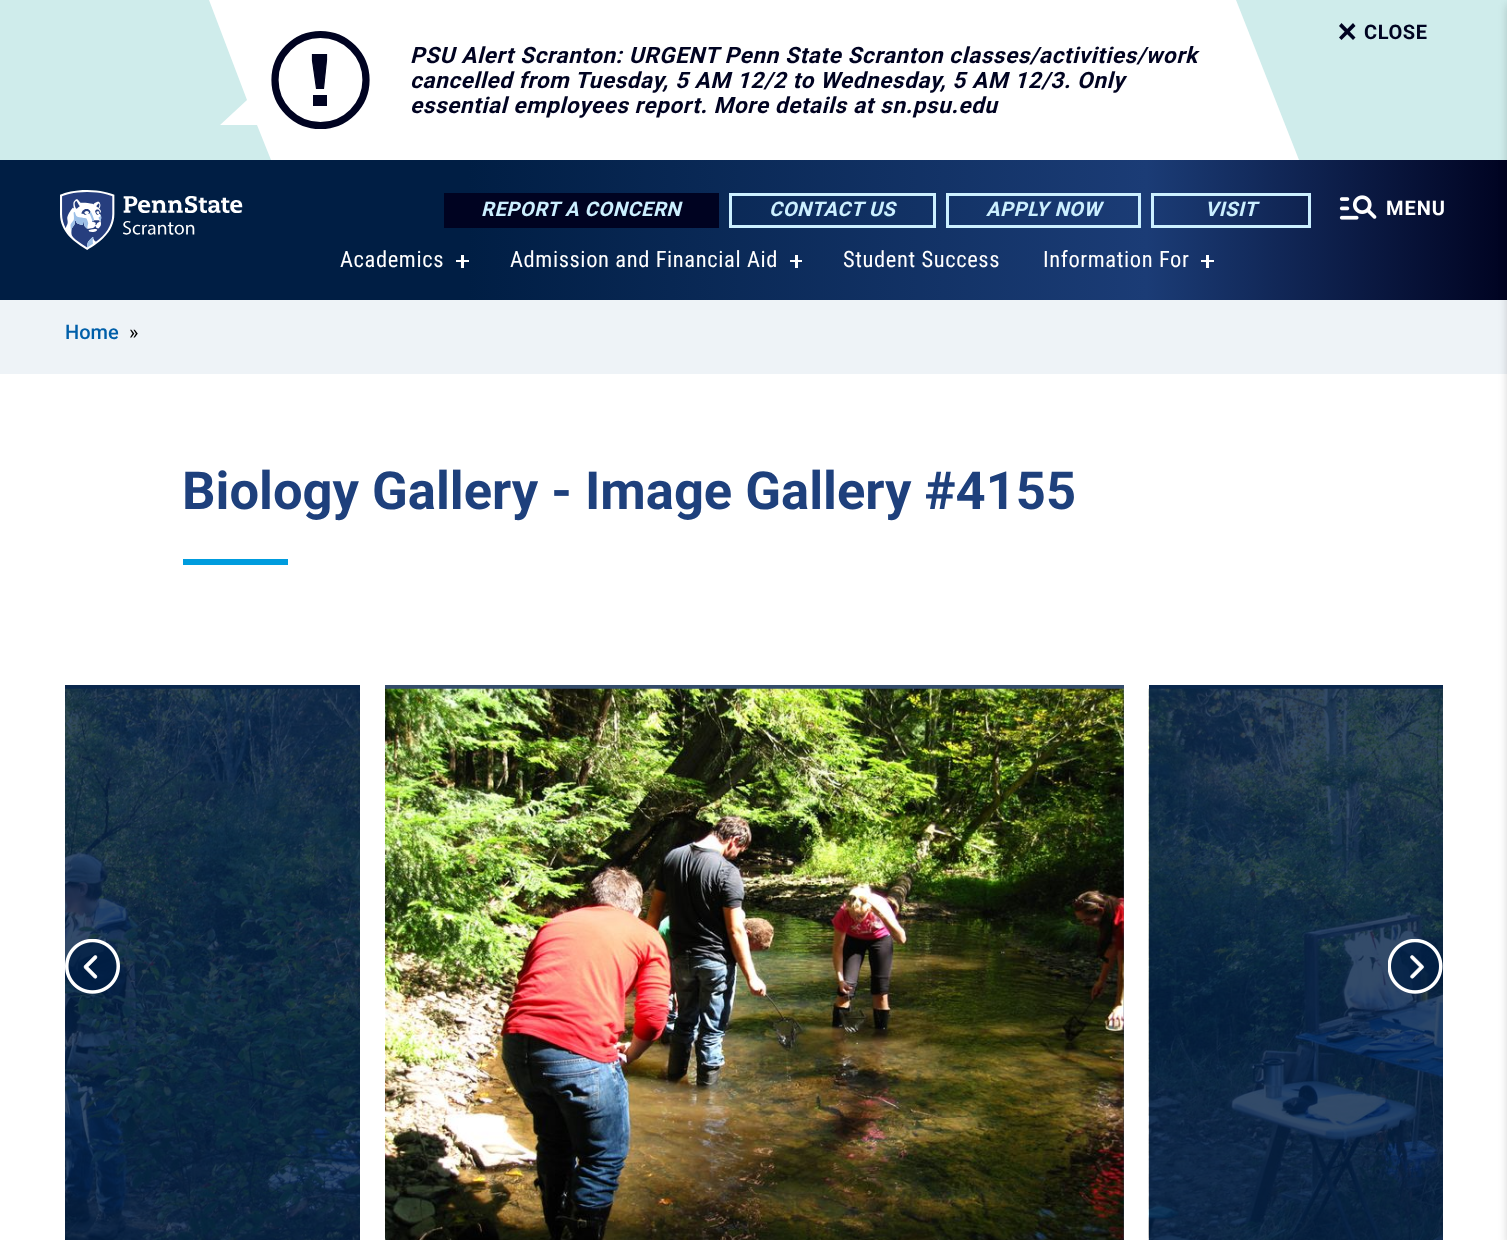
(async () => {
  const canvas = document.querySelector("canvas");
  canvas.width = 1507;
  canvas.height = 1240;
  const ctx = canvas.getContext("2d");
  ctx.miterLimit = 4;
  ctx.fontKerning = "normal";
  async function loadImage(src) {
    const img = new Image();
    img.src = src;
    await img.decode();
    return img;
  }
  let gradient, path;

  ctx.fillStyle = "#ffffff";
  ctx.fillRect(0, 0, 1507, 1240);
  ctx.fillStyle = "#cfeceb";
  ctx.fillRect(0, 0, 1507, 160);
  ctx.fillStyle = "#ffffff";
  path = new Path2D("M271 160V0H209L247 100L220 125H257Z");
  ctx.fill(path);
  path = new Path2D("M1299 160H1236V0Z");
  ctx.fill(path);
  ctx.fillStyle = "#000321";
  path = new Path2D("M1353 23L1355.5 26L1341.5 40L1339 37.5Z");
  ctx.fill(path);
  path = new Path2D("M1355.5 37.5L1353 40L1339 26L1341.5 23Z");
  ctx.fill(path);
  ctx.fillStyle = "#ffffff";
  ctx.fillRect(271, 0, 965, 160);
  ctx.beginPath();
  ctx.arc(320.5, 80, 45.5, 0, Math.PI * 2);
  ctx.strokeStyle = "#000321";
  ctx.lineWidth = 7.2;
  ctx.stroke();
  ctx.fillStyle = "#000321";
  ctx.fillRect(313, 95, 14, 11);
  path = new Path2D("M323.5 88.5H316.5L312.5 60.5V54.5H326.5V60Z");
  ctx.fill(path);
  ctx.lineWidth = 1.2;
  ctx.stroke(path);
  gradient = ctx.createLinearGradient(0, 230, 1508, 230);
  gradient.addColorStop(0, "#001e44");
  gradient.addColorStop(0.31, "#001e44");
  gradient.addColorStop(0.76, "#1b3c76");
  gradient.addColorStop(1, "#000321");
  ctx.fillStyle = gradient;
  ctx.fillRect(0, 160, 1507, 140);
  ctx.drawImage(await loadImage("img/1.png"), 60, 190, 183, 60);
  ctx.fillStyle = "#000321";
  ctx.fillRect(444, 193, 275, 35);
  ctx.strokeStyle = "#ccf0ff";
  ctx.lineWidth = 3;
  ctx.strokeRect(730.5, 194.5, 204, 32);
  ctx.strokeRect(947.5, 194.5, 192, 32);
  ctx.strokeRect(1152.5, 194.5, 157, 32);
  ctx.drawImage(await loadImage("img/2.png"), 1339, 195, 38, 25);
  for (const [x, y, w, h, color] of [
    [456, 260, 13, 2, "#ffffff"],
    [461, 255, 3, 13, "#ffffff"],
    [790, 260, 12, 2, "#ffffff"],
    [795, 255, 3, 13, "#ffffff"],
    [1201, 260, 13, 2, "#ffffff"],
    [1206, 255, 3, 13, "#ffffff"],
    [0, 300, 1507, 74, "#eef3f7"],
  ]) {
    ctx.fillStyle = color;
    ctx.fillRect(x, y, w, h);
  }
  ctx.fillStyle = "rgba(0, 0, 0, 0.2)";
  ctx.filter = "blur(5px)";
  ctx.beginPath();
  ctx.rect(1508, 5, 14, 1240);
  ctx.fill();
  ctx.filter = "none";
  ctx.fillStyle = "#009cde";
  ctx.fillRect(183, 559, 105, 6);
  ctx.fillStyle = "#0a274c";
  ctx.fillRect(65, 685, 295, 4);
  ctx.drawImage(await loadImage("img/3.png"), 65, 688, 295, 552);
  ctx.fillStyle = "#334b6a";
  ctx.fillRect(385, 685, 739, 555);
  ctx.drawImage(await loadImage("img/4.png"), 385, 688, 739, 552);
  ctx.fillStyle = "#0a274c";
  ctx.fillRect(1149, 685, 294, 4);
  ctx.drawImage(await loadImage("img/5.png"), 1148, 688, 295, 552);
  ctx.fillStyle = "rgba(0, 30, 68, 0.8)";
  ctx.beginPath();
  ctx.arc(92.5, 966.5, 27.5, 0, Math.PI * 2);
  ctx.fill();
  ctx.drawImage(await loadImage("img/6.png"), 65, 939, 55, 55);
  ctx.beginPath();
  ctx.arc(1415.5, 966.5, 27.5, 0, Math.PI * 2);
  ctx.fill();
  ctx.drawImage(await loadImage("img/7.png"), 1388, 939, 55, 55);
  ctx.letterSpacing = "0.6px";
  ctx.font = "bold 20px Roboto";
  ctx.fillStyle = "#000321";
  ctx.fillText("CLOSE", 1364, 39);
  ctx.font = "italic bold 22.5px Roboto";
  for (const [text, x, y] of [
    ["PSU Alert Scranton: URGENT Penn State Scranton classes/activities/work", 410, 63],
    ["cancelled from Tuesday, 5 AM 12/2 to Wednesday, 5 AM 12/3. Only", 410, 88],
    ["essential employees report. More details at sn.psu.edu", 410, 113],
  ]) {
    ctx.fillText(text, x, y);
  }
  ctx.font = "italic bold 20px Roboto";
  ctx.fillStyle = "#ccf0ff";
  for (const [text, x, y] of [
    ["REPORT A CONCERN", 481, 216],
    ["CONTACT US", 769, 216],
    ["APPLY NOW", 986, 216],
    ["VISIT", 1205, 216],
  ]) {
    ctx.fillText(text, x, y);
  }
  ctx.letterSpacing = "1px";
  ctx.font = "bold 20px Roboto";
  ctx.fillStyle = "#ffffff";
  ctx.fillText("MENU", 1386, 215);
  ctx.letterSpacing = "0.6px";
  ctx.font = "22.5px Roboto Condensed";
  for (const [text, x, y] of [
    ["Academics", 340, 267],
    ["Admission and Financial Aid", 510, 267],
    ["Student Success", 843, 267],
    ["Information For", 1043, 267],
  ]) {
    ctx.fillText(text, x, y);
  }
  ctx.letterSpacing = "0px";
  ctx.font = "500 20px Roboto";
  ctx.fillStyle = "#005fa9";
  ctx.fillText("Home", 65, 339);
  ctx.font = "20px Roboto";
  ctx.fillStyle = "#000000";
  ctx.fillText("»", 129, 339);
  ctx.font = "bold 52.5px Roboto";
  ctx.fillStyle = "#1e407c";
  ctx.fillText("Biology Gallery - Image Gallery #4155", 182, 509);
})();
